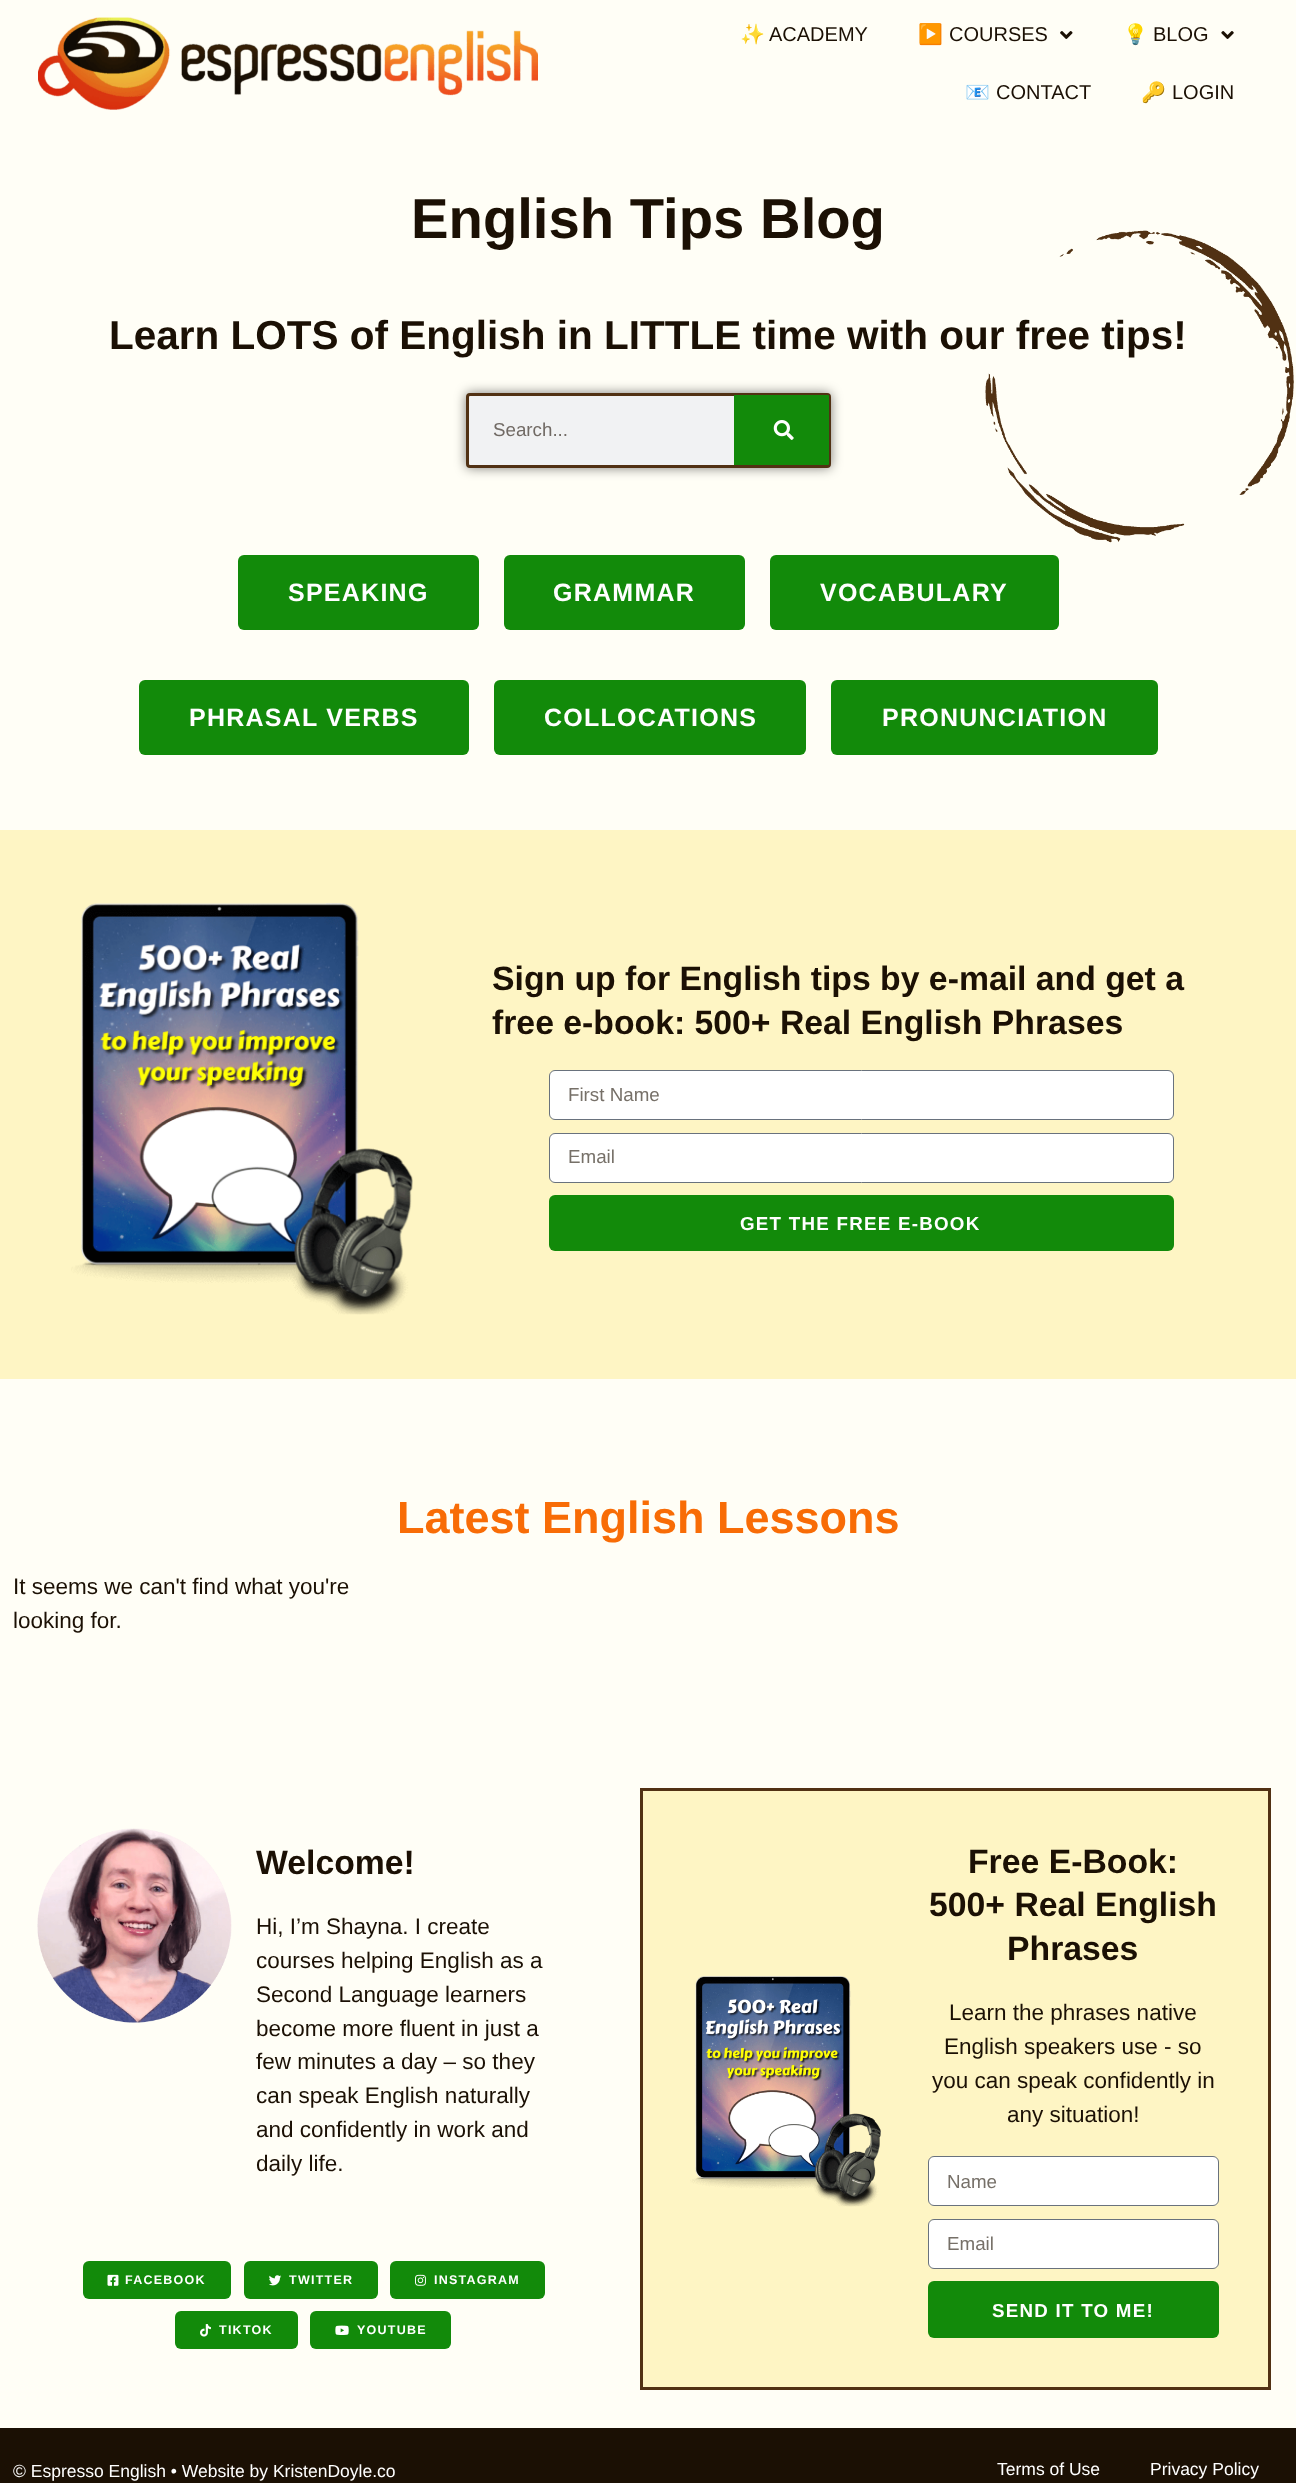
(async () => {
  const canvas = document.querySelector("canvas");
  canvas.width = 1296;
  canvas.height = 2483;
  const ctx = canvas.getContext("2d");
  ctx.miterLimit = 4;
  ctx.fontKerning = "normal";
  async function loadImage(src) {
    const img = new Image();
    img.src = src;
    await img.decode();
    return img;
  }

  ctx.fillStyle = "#fffef6";
  ctx.fillRect(0, 0, 1296, 2483);
  ctx.drawImage(await loadImage("img/1.png"), 38, 17, 500, 93);
  ctx.drawImage(await loadImage("img/2.png"), 1060, 31, 13, 8);
  ctx.drawImage(await loadImage("img/3.png"), 1221, 31, 13, 8);
  ctx.drawImage(await loadImage("img/4.png"), 985, 230, 309, 313);
  ctx.fillStyle = "rgba(0, 0, 0, 0.5)";
  ctx.filter = "blur(6px)";
  ctx.beginPath();
  ctx.roundRect(466, 393, 365, 75, 4);
  ctx.fill();
  ctx.filter = "none";
  ctx.fillStyle = "#f1f2f3";
  ctx.beginPath();
  ctx.roundRect(467.5, 394.5, 362, 72, 2.5);
  ctx.fill();
  ctx.strokeStyle = "#513113";
  ctx.lineWidth = 3;
  ctx.stroke();
  ctx.fillStyle = "#128a0a";
  ctx.beginPath();
  ctx.roundRect(734, 395, 95, 70, [0, 1, 1, 0]);
  ctx.fill();
  ctx.drawImage(await loadImage("img/5.png"), 773, 420, 21, 20);
  ctx.beginPath();
  ctx.roundRect(238, 555, 241, 75, 6);
  ctx.fill();
  ctx.beginPath();
  ctx.roundRect(504, 555, 241, 75, 6);
  ctx.fill();
  ctx.beginPath();
  ctx.roundRect(770, 555, 289, 75, 6);
  ctx.fill();
  ctx.beginPath();
  ctx.roundRect(139, 680, 330, 75, 6);
  ctx.fill();
  ctx.beginPath();
  ctx.roundRect(494, 680, 312, 75, 6);
  ctx.fill();
  ctx.beginPath();
  ctx.roundRect(831, 680, 327, 75, 6);
  ctx.fill();
  ctx.fillStyle = "#fef5c4";
  ctx.fillRect(0, 830, 1296, 549);
  ctx.drawImage(await loadImage("img/6.png"), 71, 903, 342, 412);
  ctx.fillStyle = "#ffffff";
  ctx.beginPath();
  ctx.roundRect(549.5, 1070.5, 624, 49, 5.5);
  ctx.fill();
  ctx.strokeStyle = "#69727d";
  ctx.lineWidth = 1;
  ctx.stroke();
  ctx.beginPath();
  ctx.roundRect(549.5, 1133.5, 624, 49, 5.5);
  ctx.fill();
  ctx.stroke();
  ctx.fillStyle = "#128a0a";
  ctx.beginPath();
  ctx.roundRect(549, 1195, 625, 56, 6);
  ctx.fill();
  ctx.drawImage(await loadImage("img/7.png"), 37, 1828, 195, 195);
  ctx.beginPath();
  ctx.roundRect(83, 2261, 148, 38, 6);
  ctx.fill();
  ctx.drawImage(await loadImage("img/8.png"), 107, 2274, 12, 12);
  ctx.beginPath();
  ctx.roundRect(244, 2261, 134, 38, 6);
  ctx.fill();
  ctx.drawImage(await loadImage("img/9.png"), 269, 2275, 13, 11);
  ctx.beginPath();
  ctx.roundRect(390, 2261, 155, 38, 6);
  ctx.fill();
  ctx.drawImage(await loadImage("img/10.png"), 415, 2274, 11, 12);
  ctx.beginPath();
  ctx.roundRect(175, 2311, 123, 38, 6);
  ctx.fill();
  ctx.drawImage(await loadImage("img/11.png"), 200, 2324, 11, 13);
  ctx.beginPath();
  ctx.roundRect(310, 2311, 141, 38, 6);
  ctx.fill();
  ctx.drawImage(await loadImage("img/12.png"), 335, 2325, 14, 10);
  ctx.fillStyle = "#fef5c4";
  ctx.beginPath();
  ctx.rect(641.5, 1789.5, 628, 599);
  ctx.fill();
  ctx.strokeStyle = "#513113";
  ctx.lineWidth = 3;
  ctx.stroke();
  ctx.drawImage(await loadImage("img/13.png"), 690, 1976, 191, 231);
  ctx.fillStyle = "#ffffff";
  ctx.beginPath();
  ctx.roundRect(928.5, 2156.5, 290, 49, 5.5);
  ctx.fill();
  ctx.strokeStyle = "#69727d";
  ctx.lineWidth = 1;
  ctx.stroke();
  ctx.beginPath();
  ctx.roundRect(928.5, 2219.5, 290, 49, 5.5);
  ctx.fill();
  ctx.stroke();
  ctx.fillStyle = "#128a0a";
  ctx.beginPath();
  ctx.roundRect(928, 2281, 291, 57, 6);
  ctx.fill();
  ctx.fillStyle = "#1b1004";
  ctx.fillRect(0, 2428, 1296, 55);
  ctx.font = "20px Noto Color Emoji";
  ctx.fillText("✨", 740, 41);
  ctx.font = "20px Liberation Sans";
  ctx.fillText("ACADEMY", 769, 41);
  ctx.font = "20px Noto Color Emoji";
  ctx.fillText("▶️", 918, 41);
  ctx.font = "20px Liberation Sans";
  ctx.fillText("COURSES", 949, 41);
  ctx.font = "20px Noto Color Emoji";
  ctx.fillText("💡", 1123, 41);
  ctx.font = "20px Liberation Sans";
  ctx.fillText("BLOG", 1153, 41);
  ctx.font = "20px Noto Color Emoji";
  ctx.fillText("📧", 965, 99);
  ctx.font = "20px Liberation Sans";
  ctx.fillText("CONTACT", 996, 99);
  ctx.font = "20px Noto Color Emoji";
  ctx.fillText("🔑", 1141, 99);
  ctx.font = "20px Liberation Sans";
  ctx.fillText("LOGIN", 1172, 99);
  ctx.font = "bold 56.25px Liberation Sans";
  ctx.fillText("English Tips Blog", 411, 238);
  ctx.font = "bold 40.5px Liberation Sans";
  ctx.fillText("Learn LOTS of English in LITTLE time with our free tips!", 109, 349);
  ctx.font = "18.75px Liberation Sans";
  ctx.fillStyle = "#716a64";
  ctx.fillText("Search...", 493, 436);
  ctx.letterSpacing = "1.25px";
  ctx.font = "bold 25px Liberation Sans";
  ctx.fillStyle = "#ffffff";
  for (const [text, x, y] of [
    ["SPEAKING", 288, 601],
    ["GRAMMAR", 553, 601],
    ["VOCABULARY", 820, 601],
    ["PHRASAL VERBS", 189, 726],
    ["COLLOCATIONS", 544, 726],
    ["PRONUNCIATION", 882, 726],
  ]) {
    ctx.fillText(text, x, y);
  }
  ctx.letterSpacing = "0px";
  ctx.font = "bold 33.75px Liberation Sans";
  ctx.fillStyle = "#1b1004";
  ctx.fillText("Sign up for English tips by e-mail and get a", 492, 990);
  ctx.fillText("free e-book: 500+ Real English Phrases", 492, 1034);
  ctx.font = "18.75px Liberation Sans";
  ctx.fillStyle = "#767068";
  ctx.fillText("First Name", 568, 1101);
  ctx.fillText("Email", 568, 1163);
  ctx.letterSpacing = "1.25px";
  ctx.font = "bold 18.75px Liberation Sans";
  ctx.fillStyle = "#ffffff";
  ctx.fillText("GET THE FREE E-BOOK", 740, 1230);
  ctx.letterSpacing = "0px";
  ctx.font = "bold 45px Liberation Sans";
  ctx.fillStyle = "#f86c06";
  ctx.fillText("Latest English Lessons", 397, 1533);
  ctx.font = "22.5px Liberation Sans";
  ctx.fillStyle = "#1b1004";
  ctx.fillText("It seems we can't find what you're", 13, 1594);
  ctx.fillText("looking for.", 13, 1628);
  ctx.font = "bold 33.75px Liberation Sans";
  ctx.fillText("Welcome!", 256, 1874);
  ctx.font = "22.5px Liberation Sans";
  for (const [text, x, y] of [
    ["Hi, I’m Shayna. I create", 256, 1934],
    ["courses helping English as a", 256, 1968],
    ["Second Language learners", 256, 2002],
    ["become more fluent in just a", 256, 2036],
    ["few minutes a day – so they", 256, 2069],
    ["can speak English naturally", 256, 2103],
    ["and confidently in work and", 256, 2137],
    ["daily life.", 256, 2171],
  ]) {
    ctx.fillText(text, x, y);
  }
  ctx.letterSpacing = "1.25px";
  ctx.font = "bold 12.5px Liberation Sans";
  ctx.fillStyle = "#ffffff";
  for (const [text, x, y] of [
    ["FACEBOOK", 125, 2284],
    ["TWITTER", 289, 2284],
    ["INSTAGRAM", 434, 2284],
    ["TIKTOK", 219, 2334],
    ["YOUTUBE", 357, 2334],
  ]) {
    ctx.fillText(text, x, y);
  }
  ctx.letterSpacing = "0px";
  ctx.font = "bold 33.75px Liberation Sans";
  ctx.fillStyle = "#1b1004";
  for (const [text, x, y] of [
    ["Free E-Book:", 968, 1873],
    ["500+ Real English", 929, 1916],
    ["Phrases", 1007, 1960],
  ]) {
    ctx.fillText(text, x, y);
  }
  ctx.font = "22.5px Liberation Sans";
  for (const [text, x, y] of [
    ["Learn the phrases native", 949, 2020],
    ["English speakers use - so", 944, 2054],
    ["you can speak confidently in", 932, 2088],
    ["any situation!", 1007, 2122],
  ]) {
    ctx.fillText(text, x, y);
  }
  ctx.font = "18.75px Liberation Sans";
  ctx.fillStyle = "#767068";
  ctx.fillText("Name", 947, 2188);
  ctx.fillText("Email", 947, 2250);
  ctx.letterSpacing = "1.25px";
  ctx.font = "bold 18.75px Liberation Sans";
  ctx.fillStyle = "#ffffff";
  ctx.fillText("SEND IT TO ME!", 992, 2317);
  ctx.letterSpacing = "0px";
  ctx.font = "17.5px Liberation Sans";
  for (const [text, x, y] of [
    ["© Espresso English • Website by KristenDoyle.co", 13, 2477],
    ["Terms of Use", 997, 2475],
    ["Privacy Policy", 1150, 2475],
  ]) {
    ctx.fillText(text, x, y);
  }
})();
